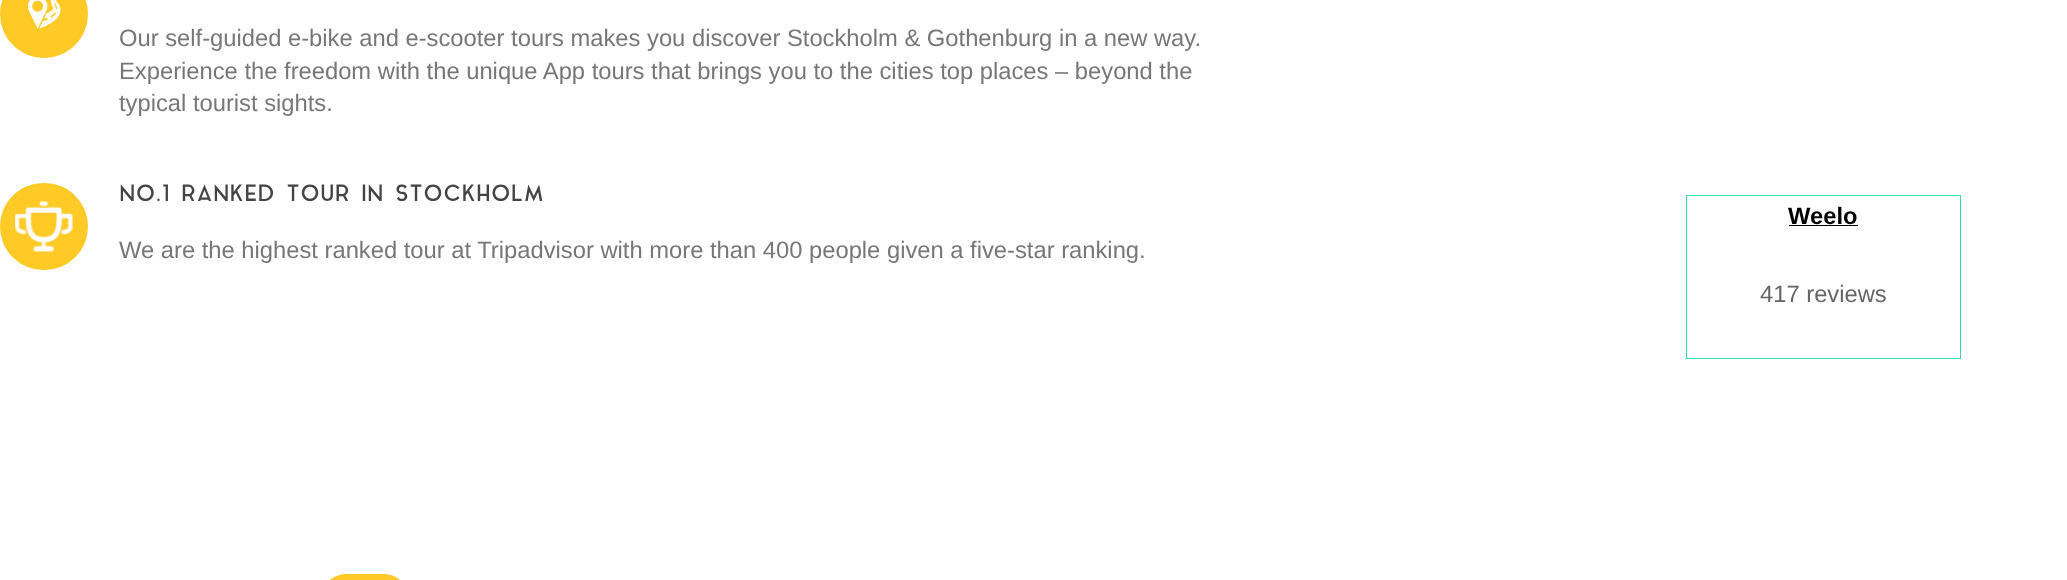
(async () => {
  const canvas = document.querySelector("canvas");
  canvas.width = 2067;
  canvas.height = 580;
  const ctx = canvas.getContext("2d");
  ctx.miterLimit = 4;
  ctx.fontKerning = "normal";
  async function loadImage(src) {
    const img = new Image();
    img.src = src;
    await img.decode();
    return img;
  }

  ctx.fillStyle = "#ffffff";
  ctx.fillRect(0, 0, 2067, 580);
  ctx.fillStyle = "#ffc926";
  ctx.beginPath();
  ctx.arc(44, 14, 44, 0, Math.PI * 2);
  ctx.fill();
  ctx.drawImage(await loadImage("img/1.png"), 27, 0, 34, 29);
  ctx.beginPath();
  ctx.roundRect(0, 183, 88, 87, 43.5);
  ctx.fill();
  ctx.drawImage(await loadImage("img/2.png"), 15, 201, 58, 51);
  ctx.strokeStyle = "#34e0a1";
  ctx.strokeRect(1686.5, 195.5, 274, 163);
  ctx.fillStyle = "#000000";
  ctx.fillRect(1789, 225, 69, 1);
  ctx.fillStyle = "#ffc926";
  ctx.beginPath();
  ctx.roundRect(321, 574, 88, 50, 43.5);
  ctx.fill();
  ctx.font = "23.75px Liberation Sans";
  ctx.fillStyle = "#777777";
  for (const [text, x, y] of [
    ["Our self-guided e-bike and e-scooter tours makes you discover Stockholm & Gothenburg in a new way.", 119, 46],
    ["Experience the freedom with the unique App tours that brings you to the cities top places – beyond the", 119, 79],
    ["typical tourist sights.", 119, 111],
  ]) {
    ctx.fillText(text, x, y);
  }
  ctx.font = "22.5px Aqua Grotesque";
  ctx.fillStyle = "#444444";
  ctx.fillText("NO.1 RANKED TOUR IN STOCKHOLM", 119, 201);
  ctx.font = "23.75px Liberation Sans";
  ctx.fillStyle = "#777777";
  ctx.fillText("We are the highest ranked tour at Tripadvisor with more than 400 people given a five-star ranking.", 119, 258);
  ctx.font = "bold 23.75px Liberation Sans";
  ctx.fillStyle = "#000000";
  ctx.fillText("Weelo", 1788, 224);
  ctx.font = "23.75px Liberation Sans";
  ctx.fillStyle = "#666666";
  ctx.fillText("417 reviews", 1760, 302);
})();
